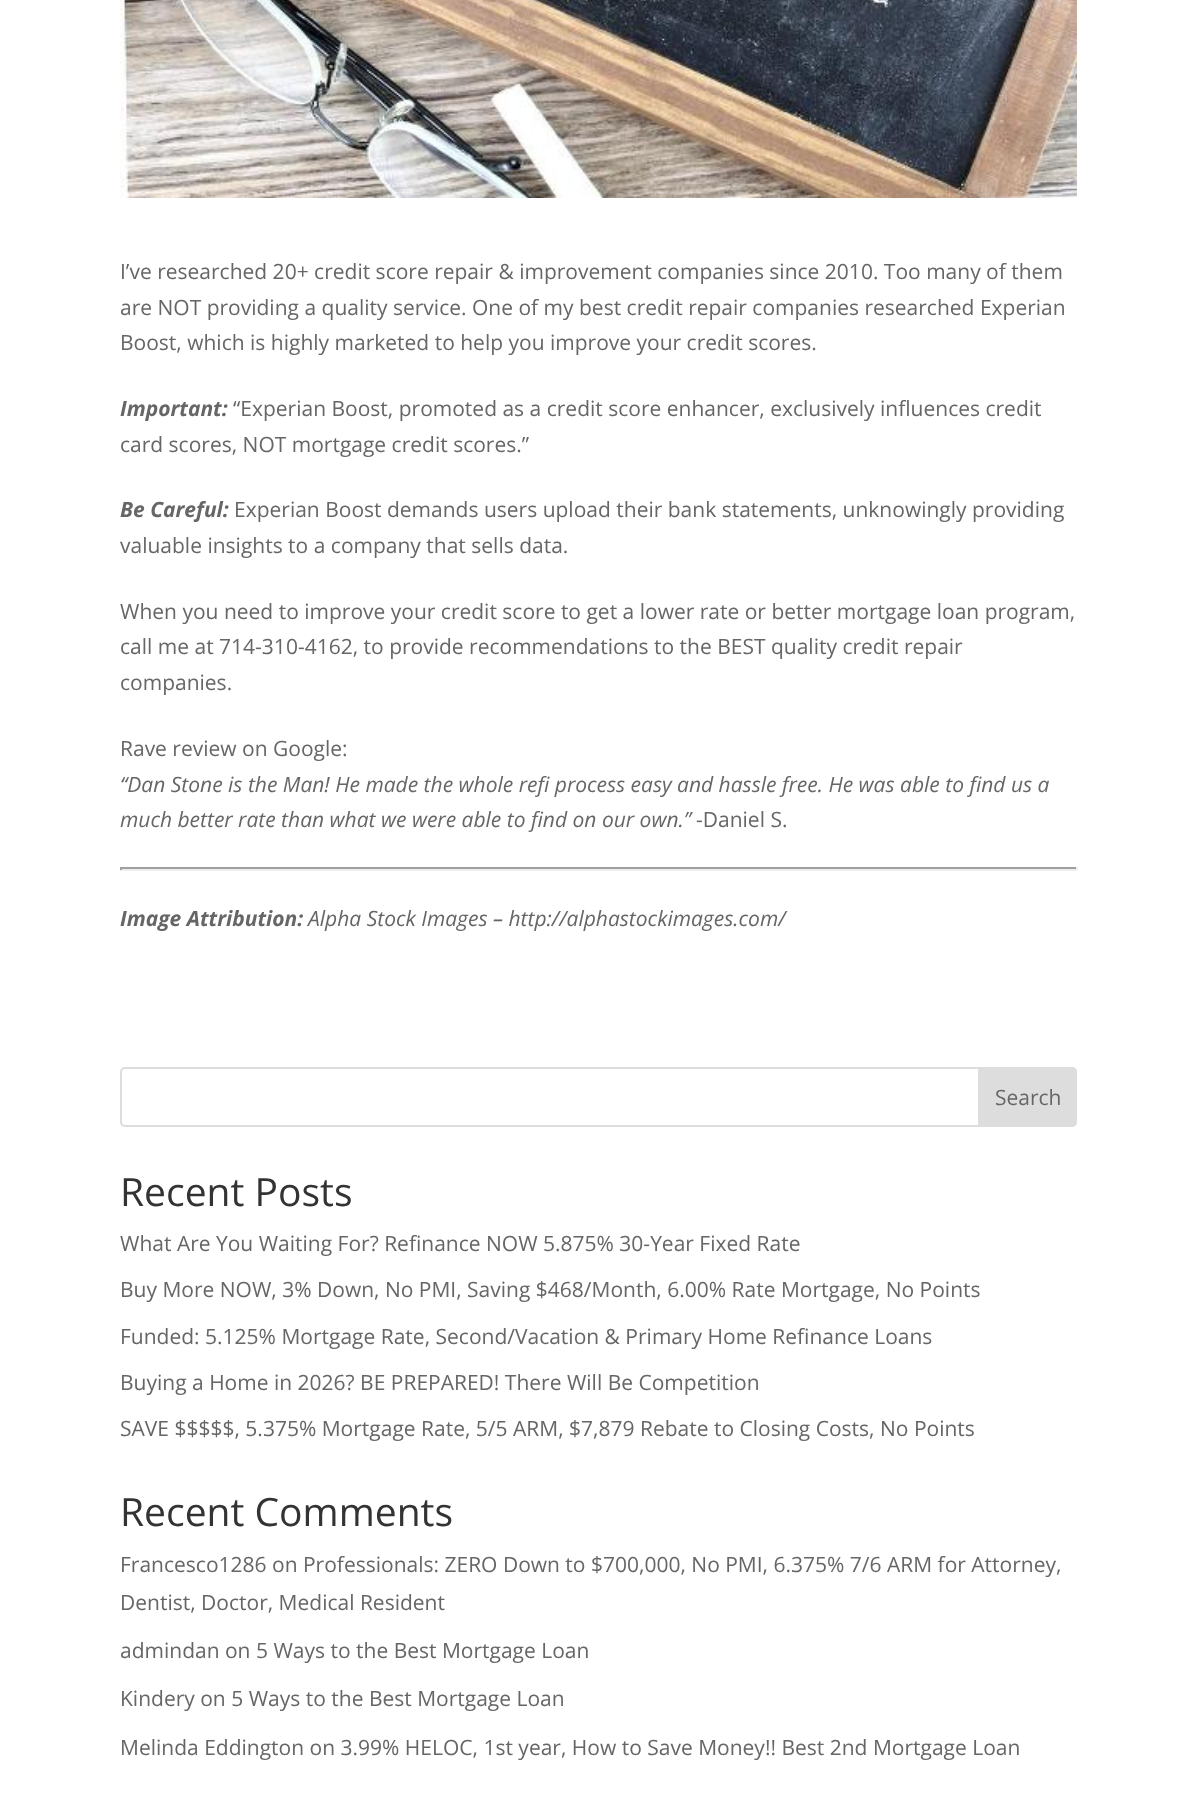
(async () => {
  const canvas = document.querySelector("canvas");
  canvas.width = 1196;
  canvas.height = 1807;
  const ctx = canvas.getContext("2d");
  ctx.miterLimit = 4;
  ctx.fontKerning = "normal";
  async function loadImage(src) {
    const img = new Image();
    img.src = src;
    await img.decode();
    return img;
  }

  ctx.fillStyle = "#ffffff";
  ctx.fillRect(0, 0, 1196, 1807);
  ctx.drawImage(await loadImage("img/1.png"), 120, 0, 957, 198);
  for (const [x, y, w, h, color] of [
    [120, 867, 957, 2, "#9f9f9f"],
    [1076, 867, 2, 3, "#eeeeee"],
    [120, 869, 957, 2, "#eeeeee"],
    [120, 867, 2, 3, "#9f9f9f"],
  ]) {
    ctx.fillStyle = color;
    ctx.fillRect(x, y, w, h);
  }
  ctx.beginPath();
  ctx.roundRect(121, 1068, 955, 58, 4);
  ctx.strokeStyle = "#dddddd";
  ctx.lineWidth = 2;
  ctx.stroke();
  ctx.fillStyle = "#dddddd";
  ctx.beginPath();
  ctx.roundRect(979, 1068, 97, 58, [0, 4, 4, 0]);
  ctx.fill();
  ctx.stroke();
  ctx.font = "21px Open Sans";
  ctx.fillStyle = "#666666";
  for (const [text, x, y] of [
    ["I’ve researched 20+ credit score repair & improvement companies since 2010. Too many of them", 120, 279],
    ["are NOT providing a quality service. One of my best credit repair companies researched Experian", 120, 315],
    ["Boost, which is highly marketed to help you improve your credit scores.", 120, 350],
  ]) {
    ctx.fillText(text, x, y);
  }
  ctx.font = "italic bold 21px Open Sans";
  ctx.fillText("Important:", 120, 416);
  ctx.font = "21px Open Sans";
  ctx.fillText("“Experian Boost, promoted as a credit score enhancer, exclusively influences credit", 233, 416);
  ctx.fillText("card scores, NOT mortgage credit scores.”", 120, 452);
  ctx.font = "italic bold 21px Open Sans";
  ctx.fillText("Be Careful:", 120, 517);
  ctx.font = "21px Open Sans";
  for (const [text, x, y] of [
    ["Experian Boost demands users upload their bank statements, unknowingly providing", 234, 517],
    ["valuable insights to a company that sells data.", 120, 553],
    ["When you need to improve your credit score to get a lower rate or better mortgage loan program,", 120, 619],
    ["call me at 714-310-4162, to provide recommendations to the BEST quality credit repair", 120, 654],
    ["companies.", 120, 690],
    ["Rave review on Google:", 120, 756],
  ]) {
    ctx.fillText(text, x, y);
  }
  ctx.font = "italic 21px Open Sans";
  ctx.fillText("“Dan Stone is the Man! He made the whole refi process easy and hassle free. He was able to find us a", 120, 792);
  ctx.fillText("much better rate than what we were able to find on our own.”", 120, 827);
  ctx.font = "21px Open Sans";
  ctx.fillText("-Daniel S.", 696, 827);
  ctx.font = "italic bold 21px Open Sans";
  ctx.fillText("Image Attribution:", 120, 926);
  ctx.font = "italic 21px Open Sans";
  ctx.fillText("Alpha Stock Images – http://alphastockimages.com/", 308, 926);
  ctx.font = "21px Open Sans";
  ctx.fillText("Search", 995, 1105);
  ctx.font = "39px Open Sans";
  ctx.fillStyle = "#333333";
  ctx.fillText("Recent Posts", 120, 1206);
  ctx.font = "21px Open Sans";
  ctx.fillStyle = "#666666";
  for (const [text, x, y] of [
    ["What Are You Waiting For? Refinance NOW 5.875% 30-Year Fixed Rate", 120, 1251],
    ["Buy More NOW, 3% Down, No PMI, Saving $468/Month, 6.00% Rate Mortgage, No Points", 120, 1297],
    ["Funded: 5.125% Mortgage Rate, Second/Vacation & Primary Home Refinance Loans", 120, 1344],
    ["Buying a Home in 2026? BE PREPARED! There Will Be Competition", 120, 1390],
    ["SAVE $$$$$, 5.375% Mortgage Rate, 5/5 ARM, $7,879 Rebate to Closing Costs, No Points", 120, 1436],
  ]) {
    ctx.fillText(text, x, y);
  }
  ctx.font = "39px Open Sans";
  ctx.fillStyle = "#333333";
  ctx.fillText("Recent Comments", 120, 1526);
  ctx.font = "21px Open Sans";
  ctx.fillStyle = "#666666";
  for (const [text, x, y] of [
    ["Francesco1286 on Professionals: ZERO Down to $700,000, No PMI, 6.375% 7/6 ARM for Attorney,", 120, 1572],
    ["Dentist, Doctor, Medical Resident", 120, 1610],
    ["admindan on 5 Ways to the Best Mortgage Loan", 120, 1658],
    ["Kindery on 5 Ways to the Best Mortgage Loan", 120, 1706],
    ["Melinda Eddington on 3.99% HELOC, 1st year, How to Save Money!! Best 2nd Mortgage Loan", 120, 1755],
  ]) {
    ctx.fillText(text, x, y);
  }
})();
